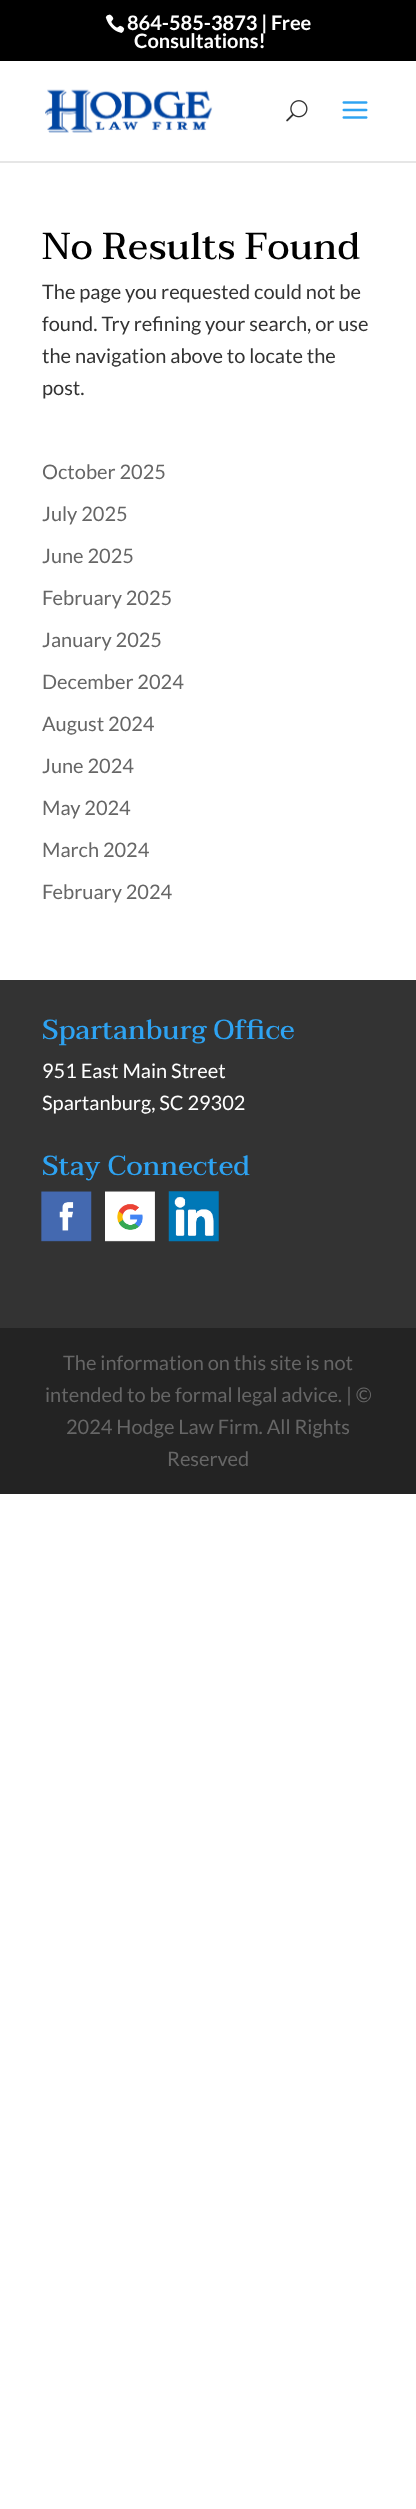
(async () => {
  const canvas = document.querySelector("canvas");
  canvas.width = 416;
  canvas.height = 2509;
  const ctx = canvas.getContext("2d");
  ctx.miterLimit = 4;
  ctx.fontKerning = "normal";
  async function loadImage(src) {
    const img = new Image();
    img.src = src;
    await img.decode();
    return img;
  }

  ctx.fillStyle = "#ffffff";
  ctx.fillRect(0, 0, 416, 2509);
  ctx.fillStyle = "#000000";
  ctx.fillRect(0, 0, 416, 61);
  ctx.drawImage(await loadImage("img/1.png"), 105, 14, 20, 19);
  ctx.fillStyle = "#e6e6e6";
  ctx.fillRect(0, 161, 416, 2);
  ctx.drawImage(await loadImage("img/2.png"), 45, 89, 168, 44);
  ctx.drawImage(await loadImage("img/3.png"), 286, 100, 22, 22);
  ctx.drawImage(await loadImage("img/4.png"), 342, 101, 26, 18);
  ctx.fillStyle = "#333333";
  ctx.fillRect(0, 980, 416, 348);
  ctx.drawImage(await loadImage("img/5.png"), 41, 1191, 51, 51);
  ctx.drawImage(await loadImage("img/6.png"), 105, 1191, 50, 51);
  ctx.drawImage(await loadImage("img/7.png"), 168, 1191, 51, 51);
  ctx.fillStyle = "#232323";
  ctx.fillRect(0, 1328, 416, 166);
  ctx.font = "bold 20px Lato";
  ctx.fillStyle = "#ffffff";
  ctx.fillText("864-585-3873 | Free", 127, 30);
  ctx.fillText("Consultations!", 134, 48);
  ctx.font = "500 37.5px Taviraj";
  ctx.fillStyle = "#000000";
  ctx.fillText("No Results Found", 42, 259);
  ctx.font = "20px Lato";
  ctx.fillStyle = "#333333";
  for (const [text, x, y] of [
    ["The page you requested could not be", 42, 299],
    ["found. Try refining your search, or use", 42, 331],
    ["the navigation above to locate the", 42, 363],
    ["post.", 42, 395],
  ]) {
    ctx.fillText(text, x, y);
  }
  ctx.fillStyle = "#666666";
  for (const [text, x, y] of [
    ["October 2025", 42, 479],
    ["July 2025", 42, 521],
    ["June 2025", 42, 563],
    ["February 2025", 42, 605],
    ["January 2025", 42, 647],
    ["December 2024", 42, 689],
    ["August 2024", 42, 731],
    ["June 2024", 42, 773],
    ["May 2024", 42, 815],
    ["March 2024", 42, 857],
    ["February 2024", 42, 899],
  ]) {
    ctx.fillText(text, x, y);
  }
  ctx.font = "500 27.5px Taviraj";
  ctx.fillStyle = "#2ea3f2";
  ctx.fillText("Spartanburg Office", 42, 1039);
  ctx.font = "20px Lato";
  ctx.fillStyle = "#ffffff";
  ctx.fillText("951 East Main Street", 42, 1078);
  ctx.fillText("Spartanburg, SC 29302", 42, 1110);
  ctx.font = "500 27.5px Taviraj";
  ctx.fillStyle = "#2ea3f2";
  ctx.fillText("Stay Connected", 42, 1175);
  ctx.font = "20px Lato";
  ctx.fillStyle = "#666666";
  for (const [text, x, y] of [
    ["The information on this site is not", 63, 1370],
    ["intended to be formal legal advice. | ©", 45, 1402],
    ["2024 Hodge Law Firm. All Rights", 66, 1434],
    ["Reserved", 167, 1466],
  ]) {
    ctx.fillText(text, x, y);
  }
})();
